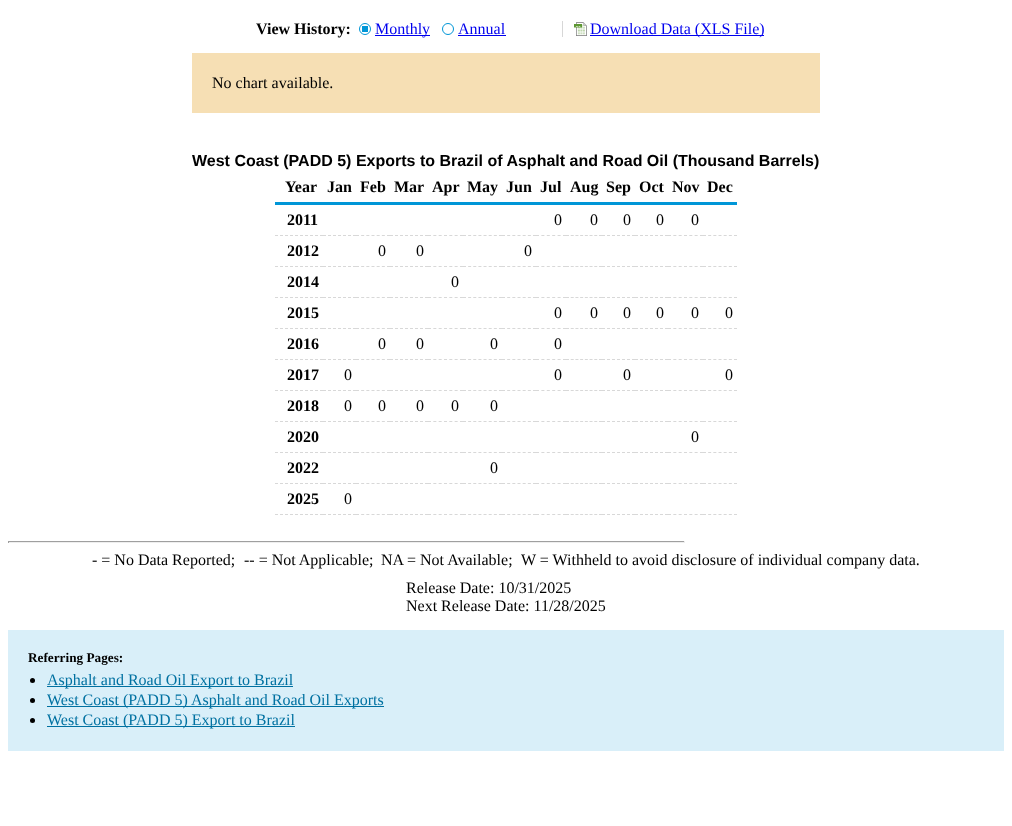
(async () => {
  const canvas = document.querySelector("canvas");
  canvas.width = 1012;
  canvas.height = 826;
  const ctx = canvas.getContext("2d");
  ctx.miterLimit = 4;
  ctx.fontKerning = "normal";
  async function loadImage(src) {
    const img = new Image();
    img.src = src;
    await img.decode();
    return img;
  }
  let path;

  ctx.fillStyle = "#ffffff";
  ctx.fillRect(0, 0, 1012, 826);
  ctx.fillStyle = "#0096d7";
  ctx.fillRect(362, 26, 6, 6);
  ctx.beginPath();
  ctx.arc(365, 29, 5.5, 0, Math.PI * 2);
  ctx.strokeStyle = "#0096d7";
  ctx.stroke();
  ctx.fillStyle = "#0000ee";
  ctx.fillRect(375, 35, 55, 1);
  ctx.beginPath();
  ctx.arc(448, 29, 5.5, 0, Math.PI * 2);
  ctx.stroke();
  ctx.fillRect(458, 35, 48, 1);
  ctx.fillStyle = "#d7d7d7";
  ctx.fillRect(562, 21, 1, 16);
  ctx.drawImage(await loadImage("img/1.png"), 574, 22, 13, 14);
  for (const [x, y, w, h, color] of [
    [590, 35, 174, 1, "#0000ee"],
    [192, 53, 628, 60, "#f6dfb4"],
    [275, 202, 462, 3, "#0096d7"],
  ]) {
    ctx.fillStyle = color;
    ctx.fillRect(x, y, w, h);
  }
  path = new Path2D("M275 235.5H323");
  ctx.strokeStyle = "#d8d8d8";
  ctx.setLineDash([3, 2]);
  ctx.stroke(path);
  path = new Path2D("M536 235.5H566");
  ctx.setLineDash([3, 2.4]);
  ctx.stroke(path);
  path = new Path2D("M566 235.5H602");
  ctx.setLineDash([3, 1.71]);
  ctx.stroke(path);
  path = new Path2D("M602 235.5H635");
  ctx.setLineDash([3, 2]);
  ctx.stroke(path);
  path = new Path2D("M635 235.5H668");
  ctx.stroke(path);
  path = new Path2D("M668 235.5H703");
  ctx.setLineDash([3, 2.33]);
  ctx.stroke(path);
  path = new Path2D("M323 235.5H356");
  ctx.setLineDash([3, 2]);
  ctx.stroke(path);
  path = new Path2D("M356 235.5H390");
  ctx.setLineDash([3, 2.17]);
  ctx.stroke(path);
  path = new Path2D("M390 235.5H428");
  ctx.setLineDash([3, 2]);
  ctx.stroke(path);
  path = new Path2D("M428 235.5H463");
  ctx.setLineDash([3, 2.33]);
  ctx.stroke(path);
  path = new Path2D("M463 235.5H502");
  ctx.setLineDash([3, 2.14]);
  ctx.stroke(path);
  path = new Path2D("M502 235.5H536");
  ctx.setLineDash([3, 2.17]);
  ctx.stroke(path);
  path = new Path2D("M703 235.5H737");
  ctx.stroke(path);
  path = new Path2D("M275 266.5H323");
  ctx.setLineDash([3, 2]);
  ctx.stroke(path);
  path = new Path2D("M356 266.5H390");
  ctx.setLineDash([3, 2.17]);
  ctx.stroke(path);
  path = new Path2D("M390 266.5H428");
  ctx.setLineDash([3, 2]);
  ctx.stroke(path);
  path = new Path2D("M502 266.5H536");
  ctx.setLineDash([3, 2.17]);
  ctx.stroke(path);
  path = new Path2D("M323 266.5H356");
  ctx.setLineDash([3, 2]);
  ctx.stroke(path);
  path = new Path2D("M428 266.5H463");
  ctx.setLineDash([3, 2.33]);
  ctx.stroke(path);
  path = new Path2D("M463 266.5H502");
  ctx.setLineDash([3, 2.14]);
  ctx.stroke(path);
  path = new Path2D("M536 266.5H566");
  ctx.setLineDash([3, 2.4]);
  ctx.stroke(path);
  path = new Path2D("M566 266.5H602");
  ctx.setLineDash([3, 1.71]);
  ctx.stroke(path);
  path = new Path2D("M602 266.5H635");
  ctx.setLineDash([3, 2]);
  ctx.stroke(path);
  path = new Path2D("M635 266.5H668");
  ctx.stroke(path);
  path = new Path2D("M668 266.5H703");
  ctx.setLineDash([3, 2.33]);
  ctx.stroke(path);
  path = new Path2D("M703 266.5H737");
  ctx.setLineDash([3, 2.17]);
  ctx.stroke(path);
  path = new Path2D("M275 297.5H323");
  ctx.setLineDash([3, 2]);
  ctx.stroke(path);
  path = new Path2D("M428 297.5H463");
  ctx.setLineDash([3, 2.33]);
  ctx.stroke(path);
  path = new Path2D("M323 297.5H356");
  ctx.setLineDash([3, 2]);
  ctx.stroke(path);
  path = new Path2D("M356 297.5H390");
  ctx.setLineDash([3, 2.17]);
  ctx.stroke(path);
  path = new Path2D("M390 297.5H428");
  ctx.setLineDash([3, 2]);
  ctx.stroke(path);
  path = new Path2D("M463 297.5H502");
  ctx.setLineDash([3, 2.14]);
  ctx.stroke(path);
  path = new Path2D("M502 297.5H536");
  ctx.setLineDash([3, 2.17]);
  ctx.stroke(path);
  path = new Path2D("M536 297.5H566");
  ctx.setLineDash([3, 2.4]);
  ctx.stroke(path);
  path = new Path2D("M566 297.5H602");
  ctx.setLineDash([3, 1.71]);
  ctx.stroke(path);
  path = new Path2D("M602 297.5H635");
  ctx.setLineDash([3, 2]);
  ctx.stroke(path);
  path = new Path2D("M635 297.5H668");
  ctx.stroke(path);
  path = new Path2D("M668 297.5H703");
  ctx.setLineDash([3, 2.33]);
  ctx.stroke(path);
  path = new Path2D("M703 297.5H737");
  ctx.setLineDash([3, 2.17]);
  ctx.stroke(path);
  path = new Path2D("M275 328.5H323");
  ctx.setLineDash([3, 2]);
  ctx.stroke(path);
  path = new Path2D("M536 328.5H566");
  ctx.setLineDash([3, 2.4]);
  ctx.stroke(path);
  path = new Path2D("M566 328.5H602");
  ctx.setLineDash([3, 1.71]);
  ctx.stroke(path);
  path = new Path2D("M602 328.5H635");
  ctx.setLineDash([3, 2]);
  ctx.stroke(path);
  path = new Path2D("M635 328.5H668");
  ctx.stroke(path);
  path = new Path2D("M668 328.5H703");
  ctx.setLineDash([3, 2.33]);
  ctx.stroke(path);
  path = new Path2D("M703 328.5H737");
  ctx.setLineDash([3, 2.17]);
  ctx.stroke(path);
  path = new Path2D("M323 328.5H356");
  ctx.setLineDash([3, 2]);
  ctx.stroke(path);
  path = new Path2D("M356 328.5H390");
  ctx.setLineDash([3, 2.17]);
  ctx.stroke(path);
  path = new Path2D("M390 328.5H428");
  ctx.setLineDash([3, 2]);
  ctx.stroke(path);
  path = new Path2D("M428 328.5H463");
  ctx.setLineDash([3, 2.33]);
  ctx.stroke(path);
  path = new Path2D("M463 328.5H502");
  ctx.setLineDash([3, 2.14]);
  ctx.stroke(path);
  path = new Path2D("M502 328.5H536");
  ctx.setLineDash([3, 2.17]);
  ctx.stroke(path);
  path = new Path2D("M275 359.5H323");
  ctx.setLineDash([3, 2]);
  ctx.stroke(path);
  path = new Path2D("M356 359.5H390");
  ctx.setLineDash([3, 2.17]);
  ctx.stroke(path);
  path = new Path2D("M390 359.5H428");
  ctx.setLineDash([3, 2]);
  ctx.stroke(path);
  path = new Path2D("M463 359.5H502");
  ctx.setLineDash([3, 2.14]);
  ctx.stroke(path);
  path = new Path2D("M536 359.5H566");
  ctx.setLineDash([3, 2.4]);
  ctx.stroke(path);
  path = new Path2D("M323 359.5H356");
  ctx.setLineDash([3, 2]);
  ctx.stroke(path);
  path = new Path2D("M428 359.5H463");
  ctx.setLineDash([3, 2.33]);
  ctx.stroke(path);
  path = new Path2D("M502 359.5H536");
  ctx.setLineDash([3, 2.17]);
  ctx.stroke(path);
  path = new Path2D("M566 359.5H602");
  ctx.setLineDash([3, 1.71]);
  ctx.stroke(path);
  path = new Path2D("M602 359.5H635");
  ctx.setLineDash([3, 2]);
  ctx.stroke(path);
  path = new Path2D("M635 359.5H668");
  ctx.stroke(path);
  path = new Path2D("M668 359.5H703");
  ctx.setLineDash([3, 2.33]);
  ctx.stroke(path);
  path = new Path2D("M703 359.5H737");
  ctx.setLineDash([3, 2.17]);
  ctx.stroke(path);
  path = new Path2D("M275 390.5H323");
  ctx.setLineDash([3, 2]);
  ctx.stroke(path);
  path = new Path2D("M323 390.5H356");
  ctx.stroke(path);
  path = new Path2D("M536 390.5H566");
  ctx.setLineDash([3, 2.4]);
  ctx.stroke(path);
  path = new Path2D("M602 390.5H635");
  ctx.setLineDash([3, 2]);
  ctx.stroke(path);
  path = new Path2D("M703 390.5H737");
  ctx.setLineDash([3, 2.17]);
  ctx.stroke(path);
  path = new Path2D("M356 390.5H390");
  ctx.stroke(path);
  path = new Path2D("M390 390.5H428");
  ctx.setLineDash([3, 2]);
  ctx.stroke(path);
  path = new Path2D("M428 390.5H463");
  ctx.setLineDash([3, 2.33]);
  ctx.stroke(path);
  path = new Path2D("M463 390.5H502");
  ctx.setLineDash([3, 2.14]);
  ctx.stroke(path);
  path = new Path2D("M502 390.5H536");
  ctx.setLineDash([3, 2.17]);
  ctx.stroke(path);
  path = new Path2D("M566 390.5H602");
  ctx.setLineDash([3, 1.71]);
  ctx.stroke(path);
  path = new Path2D("M635 390.5H668");
  ctx.setLineDash([3, 2]);
  ctx.stroke(path);
  path = new Path2D("M668 390.5H703");
  ctx.setLineDash([3, 2.33]);
  ctx.stroke(path);
  path = new Path2D("M275 421.5H323");
  ctx.setLineDash([3, 2]);
  ctx.stroke(path);
  path = new Path2D("M323 421.5H356");
  ctx.stroke(path);
  path = new Path2D("M356 421.5H390");
  ctx.setLineDash([3, 2.17]);
  ctx.stroke(path);
  path = new Path2D("M390 421.5H428");
  ctx.setLineDash([3, 2]);
  ctx.stroke(path);
  path = new Path2D("M428 421.5H463");
  ctx.setLineDash([3, 2.33]);
  ctx.stroke(path);
  path = new Path2D("M463 421.5H502");
  ctx.setLineDash([3, 2.14]);
  ctx.stroke(path);
  path = new Path2D("M502 421.5H536");
  ctx.setLineDash([3, 2.17]);
  ctx.stroke(path);
  path = new Path2D("M536 421.5H566");
  ctx.setLineDash([3, 2.4]);
  ctx.stroke(path);
  path = new Path2D("M566 421.5H602");
  ctx.setLineDash([3, 1.71]);
  ctx.stroke(path);
  path = new Path2D("M602 421.5H635");
  ctx.setLineDash([3, 2]);
  ctx.stroke(path);
  path = new Path2D("M635 421.5H668");
  ctx.stroke(path);
  path = new Path2D("M668 421.5H703");
  ctx.setLineDash([3, 2.33]);
  ctx.stroke(path);
  path = new Path2D("M703 421.5H737");
  ctx.setLineDash([3, 2.17]);
  ctx.stroke(path);
  path = new Path2D("M275 452.5H323");
  ctx.setLineDash([3, 2]);
  ctx.stroke(path);
  path = new Path2D("M668 452.5H703");
  ctx.setLineDash([3, 2.33]);
  ctx.stroke(path);
  path = new Path2D("M323 452.5H356");
  ctx.setLineDash([3, 2]);
  ctx.stroke(path);
  path = new Path2D("M356 452.5H390");
  ctx.setLineDash([3, 2.17]);
  ctx.stroke(path);
  path = new Path2D("M390 452.5H428");
  ctx.setLineDash([3, 2]);
  ctx.stroke(path);
  path = new Path2D("M428 452.5H463");
  ctx.setLineDash([3, 2.33]);
  ctx.stroke(path);
  path = new Path2D("M463 452.5H502");
  ctx.setLineDash([3, 2.14]);
  ctx.stroke(path);
  path = new Path2D("M502 452.5H536");
  ctx.setLineDash([3, 2.17]);
  ctx.stroke(path);
  path = new Path2D("M536 452.5H566");
  ctx.setLineDash([3, 2.4]);
  ctx.stroke(path);
  path = new Path2D("M566 452.5H602");
  ctx.setLineDash([3, 1.71]);
  ctx.stroke(path);
  path = new Path2D("M602 452.5H635");
  ctx.setLineDash([3, 2]);
  ctx.stroke(path);
  path = new Path2D("M635 452.5H668");
  ctx.stroke(path);
  path = new Path2D("M703 452.5H737");
  ctx.setLineDash([3, 2.17]);
  ctx.stroke(path);
  path = new Path2D("M275 483.5H323");
  ctx.setLineDash([3, 2]);
  ctx.stroke(path);
  path = new Path2D("M463 483.5H502");
  ctx.setLineDash([3, 2.14]);
  ctx.stroke(path);
  path = new Path2D("M323 483.5H356");
  ctx.setLineDash([3, 2]);
  ctx.stroke(path);
  path = new Path2D("M356 483.5H390");
  ctx.setLineDash([3, 2.17]);
  ctx.stroke(path);
  path = new Path2D("M390 483.5H428");
  ctx.setLineDash([3, 2]);
  ctx.stroke(path);
  path = new Path2D("M428 483.5H463");
  ctx.setLineDash([3, 2.33]);
  ctx.stroke(path);
  path = new Path2D("M502 483.5H536");
  ctx.setLineDash([3, 2.17]);
  ctx.stroke(path);
  path = new Path2D("M536 483.5H566");
  ctx.setLineDash([3, 2.4]);
  ctx.stroke(path);
  path = new Path2D("M566 483.5H602");
  ctx.setLineDash([3, 1.71]);
  ctx.stroke(path);
  path = new Path2D("M602 483.5H635");
  ctx.setLineDash([3, 2]);
  ctx.stroke(path);
  path = new Path2D("M635 483.5H668");
  ctx.stroke(path);
  path = new Path2D("M668 483.5H703");
  ctx.setLineDash([3, 2.33]);
  ctx.stroke(path);
  path = new Path2D("M703 483.5H737");
  ctx.setLineDash([3, 2.17]);
  ctx.stroke(path);
  path = new Path2D("M275 514.5H323");
  ctx.setLineDash([3, 2]);
  ctx.stroke(path);
  path = new Path2D("M323 514.5H356");
  ctx.stroke(path);
  path = new Path2D("M356 514.5H390");
  ctx.setLineDash([3, 2.17]);
  ctx.stroke(path);
  path = new Path2D("M390 514.5H428");
  ctx.setLineDash([3, 2]);
  ctx.stroke(path);
  path = new Path2D("M428 514.5H463");
  ctx.setLineDash([3, 2.33]);
  ctx.stroke(path);
  path = new Path2D("M463 514.5H502");
  ctx.setLineDash([3, 2.14]);
  ctx.stroke(path);
  path = new Path2D("M502 514.5H536");
  ctx.setLineDash([3, 2.17]);
  ctx.stroke(path);
  path = new Path2D("M536 514.5H566");
  ctx.setLineDash([3, 2.4]);
  ctx.stroke(path);
  path = new Path2D("M566 514.5H602");
  ctx.setLineDash([3, 1.71]);
  ctx.stroke(path);
  path = new Path2D("M602 514.5H635");
  ctx.setLineDash([3, 2]);
  ctx.stroke(path);
  path = new Path2D("M635 514.5H668");
  ctx.stroke(path);
  path = new Path2D("M668 514.5H703");
  ctx.setLineDash([3, 2.33]);
  ctx.stroke(path);
  path = new Path2D("M703 514.5H737");
  ctx.setLineDash([3, 2.17]);
  ctx.stroke(path);
  for (const [x, y, w, h, color] of [
    [8, 541, 677, 1, "#9f9f9f"],
    [684, 541, 1, 2, "#eeeeee"],
    [8, 542, 677, 1, "#eeeeee"],
    [8, 541, 1, 2, "#9f9f9f"],
    [8, 630, 996, 121, "#d9eff9"],
  ]) {
    ctx.fillStyle = color;
    ctx.fillRect(x, y, w, h);
  }
  ctx.fillStyle = "#000000";
  ctx.beginPath();
  ctx.arc(32.5, 680.5, 2.5, 0, Math.PI * 2);
  ctx.fill();
  ctx.fillStyle = "#0071a1";
  ctx.fillRect(47, 686, 246, 1);
  ctx.fillStyle = "#000000";
  ctx.beginPath();
  ctx.arc(32.5, 700.5, 2.5, 0, Math.PI * 2);
  ctx.fill();
  ctx.fillStyle = "#0071a1";
  ctx.fillRect(47, 706, 337, 1);
  ctx.fillStyle = "#000000";
  ctx.beginPath();
  ctx.arc(32.5, 720.5, 2.5, 0, Math.PI * 2);
  ctx.fill();
  ctx.fillStyle = "#0071a1";
  ctx.fillRect(47, 726, 248, 1);
  ctx.font = "bold 16px Liberation Serif";
  ctx.fillStyle = "#000000";
  ctx.fillText("View History:", 256, 34);
  ctx.font = "16px Liberation Serif";
  ctx.fillStyle = "#0000ee";
  for (const [text, x, y] of [
    ["Monthly", 375, 34],
    ["Annual", 458, 34],
    ["Download Data (XLS File)", 590, 34],
  ]) {
    ctx.fillText(text, x, y);
  }
  ctx.fillStyle = "#000000";
  ctx.fillText("No chart available.", 212, 88);
  ctx.font = "bold 16px Liberation Sans";
  ctx.fillText("West Coast (PADD 5) Exports to Brazil of Asphalt and Road Oil (Thousand Barrels)", 192, 166);
  ctx.font = "bold 16px Liberation Serif";
  for (const [text, x, y] of [
    ["Year", 285, 192],
    ["Jan", 327, 192],
    ["Feb", 360, 192],
    ["Mar", 394, 192],
    ["Apr", 432, 192],
    ["May", 467, 192],
    ["Jun", 506, 192],
    ["Jul", 540, 192],
    ["Aug", 570, 192],
    ["Sep", 606, 192],
    ["Oct", 639, 192],
    ["Nov", 672, 192],
    ["Dec", 707, 192],
    ["2011", 287, 225],
  ]) {
    ctx.fillText(text, x, y);
  }
  ctx.font = "16px Liberation Serif";
  for (const [text, x, y] of [
    ["0", 554, 225],
    ["0", 590, 225],
    ["0", 623, 225],
    ["0", 656, 225],
    ["0", 691, 225],
  ]) {
    ctx.fillText(text, x, y);
  }
  ctx.font = "bold 16px Liberation Serif";
  ctx.fillText("2012", 287, 256);
  ctx.font = "16px Liberation Serif";
  for (const [text, x, y] of [
    ["0", 378, 256],
    ["0", 416, 256],
    ["0", 524, 256],
  ]) {
    ctx.fillText(text, x, y);
  }
  ctx.font = "bold 16px Liberation Serif";
  ctx.fillText("2014", 287, 287);
  ctx.font = "16px Liberation Serif";
  ctx.fillText("0", 451, 287);
  ctx.font = "bold 16px Liberation Serif";
  ctx.fillText("2015", 287, 318);
  ctx.font = "16px Liberation Serif";
  for (const [text, x, y] of [
    ["0", 554, 318],
    ["0", 590, 318],
    ["0", 623, 318],
    ["0", 656, 318],
    ["0", 691, 318],
    ["0", 725, 318],
  ]) {
    ctx.fillText(text, x, y);
  }
  ctx.font = "bold 16px Liberation Serif";
  ctx.fillText("2016", 287, 349);
  ctx.font = "16px Liberation Serif";
  for (const [text, x, y] of [
    ["0", 378, 349],
    ["0", 416, 349],
    ["0", 490, 349],
    ["0", 554, 349],
  ]) {
    ctx.fillText(text, x, y);
  }
  ctx.font = "bold 16px Liberation Serif";
  ctx.fillText("2017", 287, 380);
  ctx.font = "16px Liberation Serif";
  for (const [text, x, y] of [
    ["0", 344, 380],
    ["0", 554, 380],
    ["0", 623, 380],
    ["0", 725, 380],
  ]) {
    ctx.fillText(text, x, y);
  }
  ctx.font = "bold 16px Liberation Serif";
  ctx.fillText("2018", 287, 411);
  ctx.font = "16px Liberation Serif";
  for (const [text, x, y] of [
    ["0", 344, 411],
    ["0", 378, 411],
    ["0", 416, 411],
    ["0", 451, 411],
    ["0", 490, 411],
  ]) {
    ctx.fillText(text, x, y);
  }
  ctx.font = "bold 16px Liberation Serif";
  ctx.fillText("2020", 287, 442);
  ctx.font = "16px Liberation Serif";
  ctx.fillText("0", 691, 442);
  ctx.font = "bold 16px Liberation Serif";
  ctx.fillText("2022", 287, 473);
  ctx.font = "16px Liberation Serif";
  ctx.fillText("0", 490, 473);
  ctx.font = "bold 16px Liberation Serif";
  ctx.fillText("2025", 287, 504);
  ctx.font = "16px Liberation Serif";
  for (const [text, x, y] of [
    ["0", 344, 504],
    ["- = No Data Reported;", 92, 565],
    ["-- = Not Applicable;", 244, 565],
    ["NA", 381, 565],
    ["= Not Available;", 407, 565],
    ["W = Withheld to avoid disclosure of individual company data.", 521, 565],
    ["Release Date: 10/31/2025", 406, 593],
    ["Next Release Date: 11/28/2025", 406, 611],
  ]) {
    ctx.fillText(text, x, y);
  }
  ctx.font = "bold 13.25px Liberation Serif";
  ctx.fillText("Referring Pages:", 28, 662);
  ctx.font = "16px Liberation Serif";
  ctx.fillStyle = "#0071a1";
  for (const [text, x, y] of [
    ["Asphalt and Road Oil Export to Brazil", 47, 685],
    ["West Coast (PADD 5) Asphalt and Road Oil Exports", 47, 705],
    ["West Coast (PADD 5) Export to Brazil", 47, 725],
  ]) {
    ctx.fillText(text, x, y);
  }
})();
